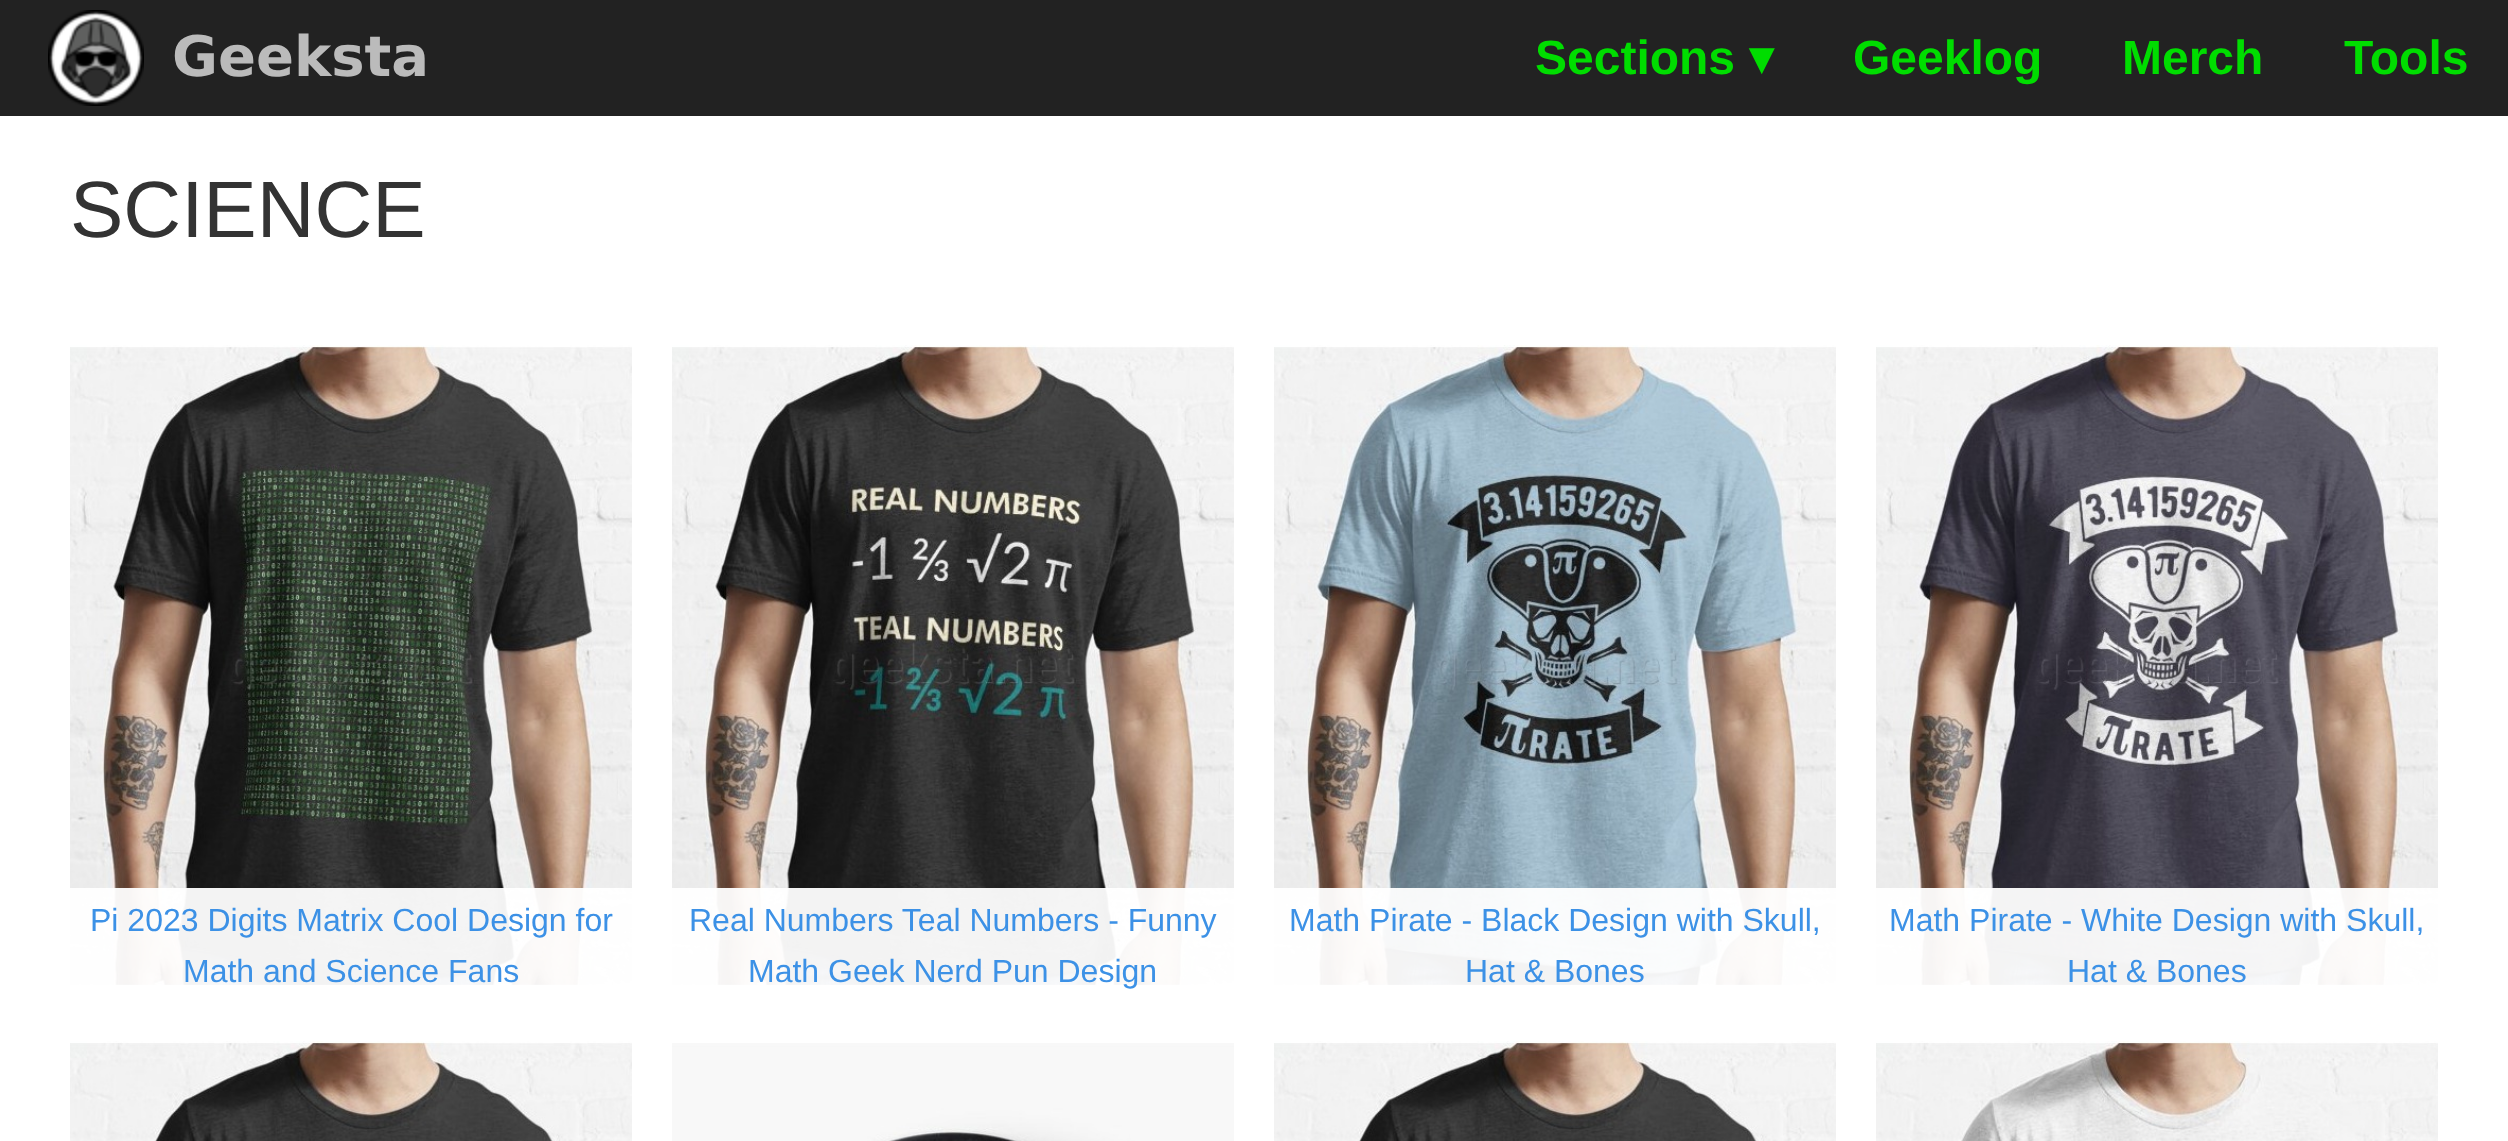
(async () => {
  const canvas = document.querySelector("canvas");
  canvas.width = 2508;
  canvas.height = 1141;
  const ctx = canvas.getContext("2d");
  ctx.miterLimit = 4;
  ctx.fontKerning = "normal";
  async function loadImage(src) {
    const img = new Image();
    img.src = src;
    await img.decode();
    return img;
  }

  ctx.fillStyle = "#ffffff";
  ctx.fillRect(0, 0, 2508, 1141);
  ctx.fillStyle = "#222222";
  ctx.fillRect(0, 0, 2508, 116);
  ctx.drawImage(await loadImage("img/1.png"), 48, 10, 96, 96);
  ctx.drawImage(await loadImage("img/2.png"), 70, 345, 562, 646);
  ctx.fillStyle = "rgba(255, 255, 255, 0.95)";
  ctx.fillRect(70, 888, 562, 103);
  ctx.drawImage(await loadImage("img/3.png"), 672, 345, 562, 646);
  ctx.fillRect(672, 888, 562, 103);
  ctx.drawImage(await loadImage("img/4.png"), 1274, 345, 562, 646);
  ctx.fillRect(1274, 888, 562, 103);
  ctx.drawImage(await loadImage("img/5.png"), 1876, 345, 562, 646);
  ctx.fillRect(1876, 888, 562, 103);
  ctx.drawImage(await loadImage("img/6.png"), 70, 1041, 562, 100);
  ctx.drawImage(await loadImage("img/7.png"), 672, 1043, 562, 98);
  ctx.drawImage(await loadImage("img/6.png"), 1274, 1041, 562, 100);
  ctx.drawImage(await loadImage("img/8.png"), 1876, 1041, 562, 100);
  ctx.font = "bold 56px DejaVu Sans";
  ctx.fillStyle = "#bbbbbb";
  ctx.fillText("Geeksta", 172, 76);
  ctx.font = "bold 48px Liberation Sans";
  ctx.fillStyle = "#00dd00";
  ctx.fillText("Sections", 1535, 74);
  ctx.font = "bold 48px 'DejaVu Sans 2'";
  ctx.fillText("▾", 1749, 74);
  ctx.font = "bold 48px Liberation Sans";
  for (const [text, x, y] of [
    ["Geeklog", 1853, 74],
    ["Merch", 2122, 74],
    ["Tools", 2344, 74],
  ]) {
    ctx.fillText(text, x, y);
  }
  ctx.font = "80px Liberation Sans";
  ctx.fillStyle = "#333333";
  ctx.fillText("SCIENCE", 70, 237);
  ctx.font = "32px Liberation Sans";
  ctx.fillStyle = "#3c91e6";
  for (const [text, x, y] of [
    ["Pi 2023 Digits Matrix Cool Design for", 90, 931],
    ["Math and Science Fans", 183, 982],
    ["Real Numbers Teal Numbers - Funny", 689, 931],
    ["Math Geek Nerd Pun Design", 748, 982],
    ["Math Pirate - Black Design with Skull,", 1289, 931],
    ["Hat & Bones", 1465, 982],
    ["Math Pirate - White Design with Skull,", 1889, 931],
    ["Hat & Bones", 2067, 982],
  ]) {
    ctx.fillText(text, x, y);
  }
})();
